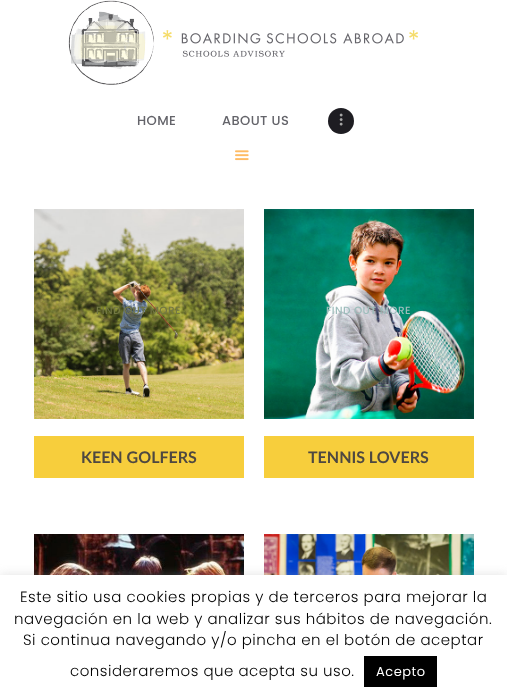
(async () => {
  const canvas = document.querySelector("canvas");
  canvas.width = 507;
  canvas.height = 699;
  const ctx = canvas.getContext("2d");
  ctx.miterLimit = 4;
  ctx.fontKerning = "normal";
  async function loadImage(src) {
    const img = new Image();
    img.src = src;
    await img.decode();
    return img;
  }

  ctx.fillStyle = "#ffffff";
  ctx.fillRect(0, 0, 507, 699);
  ctx.drawImage(await loadImage("img/1.png"), 68, 0, 350, 85);
  ctx.fillStyle = "#1e1d22";
  ctx.beginPath();
  ctx.arc(341, 121, 13, 0, Math.PI * 2);
  ctx.fill();
  ctx.drawImage(await loadImage("img/2.png"), 339, 113, 4, 13);
  ctx.drawImage(await loadImage("img/3.png"), 235, 150, 14, 11);
  ctx.drawImage(await loadImage("img/4.png"), 34, 209, 210, 210);
  ctx.fillStyle = "#f7ce3c";
  ctx.fillRect(34, 436, 210, 42);
  ctx.drawImage(await loadImage("img/5.png"), 264, 209, 210, 210);
  ctx.fillRect(264, 436, 210, 42);
  ctx.drawImage(await loadImage("img/6.png"), 34, 534, 210, 41);
  ctx.drawImage(await loadImage("img/7.png"), 264, 534, 210, 41);
  ctx.fillStyle = "rgba(172, 171, 171, 0.3)";
  ctx.filter = "blur(5px)";
  ctx.beginPath();
  ctx.rect(0, 574, 507, 124);
  ctx.fill();
  ctx.filter = "none";
  ctx.fillStyle = "#ffffff";
  ctx.fillRect(0, 575, 507, 124);
  ctx.fillStyle = "#000000";
  ctx.fillRect(364, 656, 73, 31);
  ctx.letterSpacing = "0.4px";
  ctx.font = "500 13px Poppins";
  ctx.fillStyle = "#64646a";
  ctx.fillText("HOME", 137, 125);
  ctx.fillText("ABOUT US", 222, 125);
  ctx.font = "500 10.5px Poppins";
  ctx.fillStyle = "#737844";
  ctx.fillText("FIND OUT MORE", 96, 314);
  ctx.letterSpacing = "0px";
  ctx.font = "bold 16px Lato";
  ctx.fillStyle = "#4e4841";
  ctx.fillText("KEEN GOLFERS", 81, 463);
  ctx.letterSpacing = "0.4px";
  ctx.font = "500 10.5px Poppins";
  ctx.fillStyle = "#9dbdbb";
  ctx.fillText("FIND OUT MORE", 326, 314);
  ctx.letterSpacing = "0px";
  ctx.font = "bold 16px Lato";
  ctx.fillStyle = "#4e4841";
  ctx.fillText("TENNIS LOVERS", 308, 463);
  ctx.letterSpacing = "0.5px";
  ctx.font = "300 15px Poppins";
  ctx.fillStyle = "#000000";
  for (const [text, x, y] of [
    ["Este sitio usa cookies propias y de terceros para mejorar la", 20, 602],
    ["navegación en la web y analizar sus hábitos de navegación.", 14, 624],
    ["Si continua navegando y/o pincha en el botón de aceptar", 23, 645],
    ["consideraremos que acepta su uso.", 70, 676],
  ]) {
    ctx.fillText(text, x, y);
  }
  ctx.font = "13px Poppins";
  ctx.fillStyle = "#ffffff";
  ctx.fillText("Acepto", 376, 676);
})();
